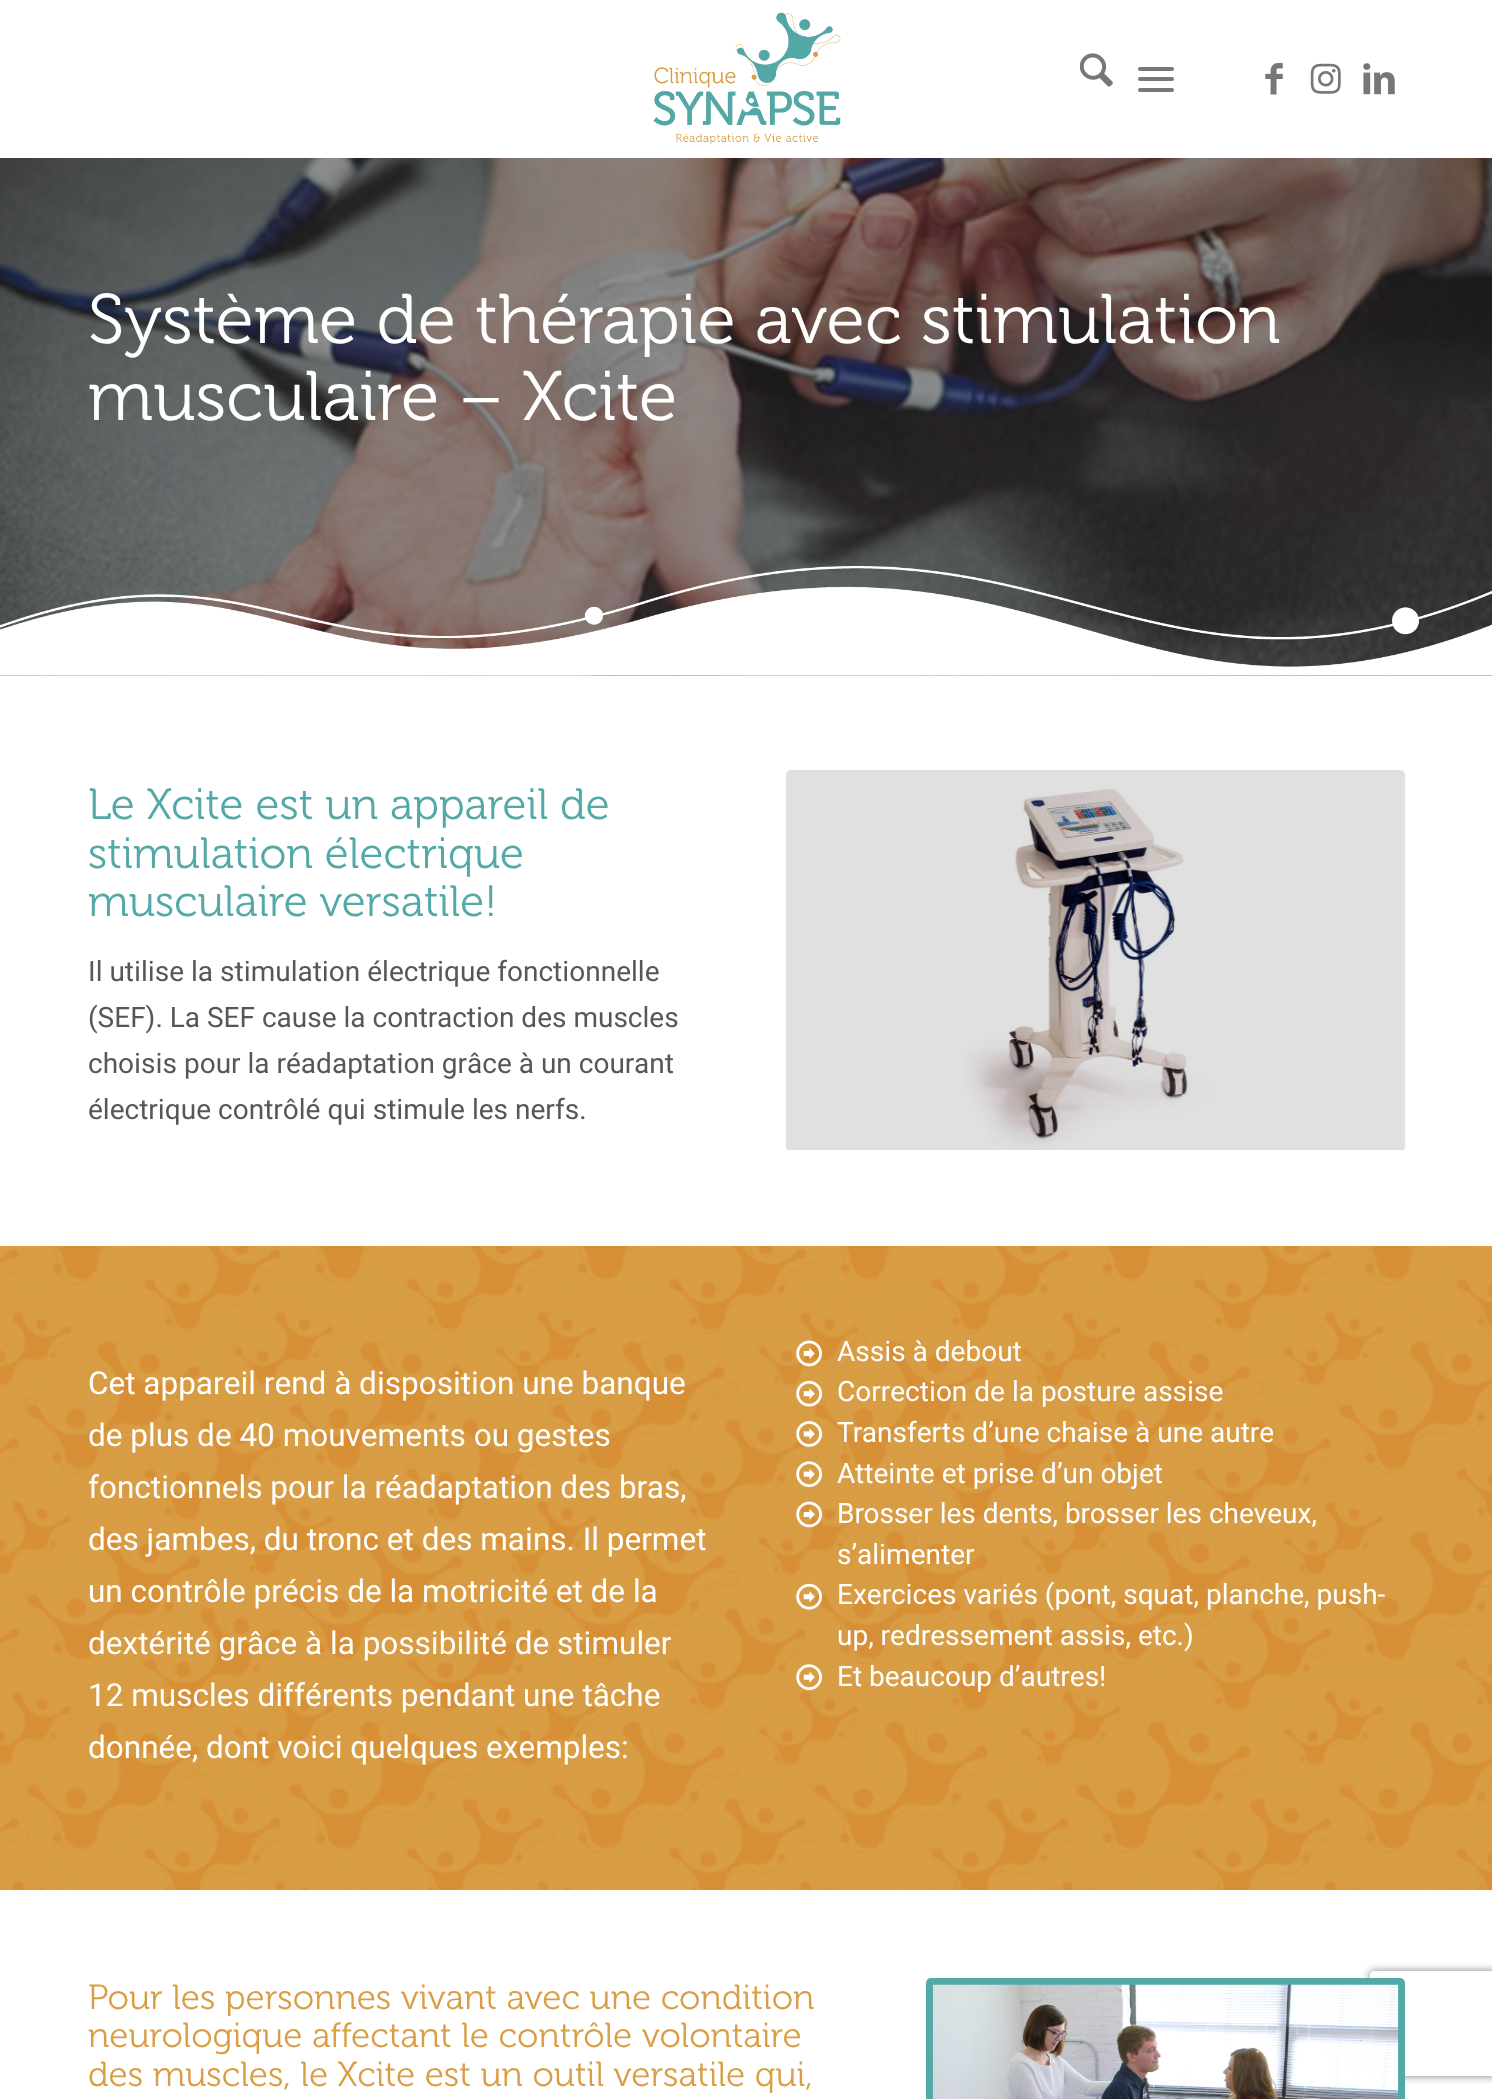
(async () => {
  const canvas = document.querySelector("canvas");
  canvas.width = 1492;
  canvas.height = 2099;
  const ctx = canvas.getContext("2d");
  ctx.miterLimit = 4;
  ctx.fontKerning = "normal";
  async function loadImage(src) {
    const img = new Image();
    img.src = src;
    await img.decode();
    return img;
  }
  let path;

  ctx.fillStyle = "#ffffff";
  ctx.fillRect(0, 0, 1492, 2099);
  ctx.drawImage(await loadImage("img/1.png"), 653, 12, 188, 133);
  ctx.drawImage(await loadImage("img/2.png"), 1080, 53, 33, 34);
  ctx.fillStyle = "#777777";
  ctx.beginPath();
  ctx.roundRect(1138, 77, 36, 4, 2);
  ctx.fill();
  ctx.beginPath();
  ctx.roundRect(1138, 67, 36, 4, 2);
  ctx.fill();
  ctx.beginPath();
  ctx.roundRect(1138, 88, 36, 4, 2);
  ctx.fill();
  ctx.drawImage(await loadImage("img/3.png"), 1265, 63, 18, 32);
  ctx.drawImage(await loadImage("img/4.png"), 1310, 63, 31, 31);
  ctx.drawImage(await loadImage("img/5.png"), 1363, 63, 32, 32);
  ctx.drawImage(await loadImage("img/6.png"), 0, 158, 1492, 518);
  ctx.drawImage(await loadImage("img/7.png"), 0, 158, 1492, 518);
  ctx.drawImage(await loadImage("img/8.png"), 786, 770, 620, 380);
  ctx.drawImage(await loadImage("img/9.png"), 0, 1246, 1492, 644);
  ctx.drawImage(await loadImage("img/10.png"), 796, 1340, 26, 27);
  ctx.drawImage(await loadImage("img/11.png"), 796, 1380, 26, 27);
  ctx.drawImage(await loadImage("img/12.png"), 796, 1421, 26, 26);
  ctx.drawImage(await loadImage("img/13.png"), 796, 1461, 26, 27);
  ctx.drawImage(await loadImage("img/14.png"), 796, 1501, 26, 27);
  ctx.drawImage(await loadImage("img/15.png"), 796, 1583, 26, 27);
  ctx.drawImage(await loadImage("img/16.png"), 796, 1664, 26, 27);
  ctx.save();
  path = new Path2D("M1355 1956H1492V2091H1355ZM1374 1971H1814C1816 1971 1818 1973 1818 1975V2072C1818 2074 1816 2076 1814 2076H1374C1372 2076 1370 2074 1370 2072V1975C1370 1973 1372 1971 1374 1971Z");
  ctx.clip(path, "evenodd");
  ctx.fillStyle = "#808080";
  ctx.filter = "blur(4.5px)";
  ctx.beginPath();
  ctx.roundRect(1370, 1971, 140, 105, 4);
  ctx.fill();
  ctx.filter = "none";
  ctx.restore();
  ctx.beginPath();
  ctx.roundRect(929.5, 1981.5, 472, 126, 1.5);
  ctx.strokeStyle = "#53a9a7";
  ctx.lineWidth = 7;
  ctx.stroke();
  ctx.drawImage(await loadImage("img/17.png"), 932, 1984, 467, 115);
  ctx.font = "300 70px 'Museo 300'";
  ctx.fillStyle = "#ffffff";
  ctx.fillText("Système de thérapie avec stimulation", 88, 343);
  ctx.fillText("musculaire – Xcite", 88, 420);
  ctx.font = "300 43.75px 'Museo 300'";
  ctx.fillStyle = "#53a9a8";
  for (const [text, x, y] of [
    ["Le Xcite est un appareil de", 88, 819],
    ["stimulation électrique", 88, 868],
    ["musculaire versatile!", 88, 916],
  ]) {
    ctx.fillText(text, x, y);
  }
  ctx.font = "28px Heebo";
  ctx.fillStyle = "#575757";
  for (const [text, x, y] of [
    ["Il utilise la stimulation électrique fonctionnelle", 88, 981],
    ["(SEF). La SEF cause la contraction des muscles", 88, 1027],
    ["choisis pour la réadaptation grâce à un courant", 88, 1073],
    ["électrique contrôlé qui stimule les nerfs.", 88, 1119],
  ]) {
    ctx.fillText(text, x, y);
  }
  ctx.font = "31.5px Heebo";
  ctx.fillStyle = "#ffffff";
  for (const [text, x, y] of [
    ["Cet appareil rend à disposition une banque", 88, 1394],
    ["de plus de 40 mouvements ou gestes", 88, 1446],
    ["fonctionnels pour la réadaptation des bras,", 88, 1498],
    ["des jambes, du tronc et des mains. Il permet", 88, 1550],
    ["un contrôle précis de la motricité et de la", 88, 1602],
    ["dextérité grâce à la possibilité de stimuler", 88, 1654],
    ["12 muscles différents pendant une tâche", 88, 1706],
    ["donnée, dont voici quelques exemples:", 88, 1758],
  ]) {
    ctx.fillText(text, x, y);
  }
  ctx.font = "28px Heebo";
  for (const [text, x, y] of [
    ["Assis à debout", 837, 1361],
    ["Correction de la posture assise", 837, 1401],
    ["Transferts d’une chaise à une autre", 837, 1442],
    ["Atteinte et prise d’un objet", 837, 1483],
    ["Brosser les dents, brosser les cheveux,", 837, 1523],
    ["s’alimenter", 837, 1564],
    ["Exercices variés (pont, squat, planche, push-", 837, 1604],
    ["up, redressement assis, etc.)", 837, 1645],
    ["Et beaucoup d’autres!", 837, 1686],
  ]) {
    ctx.fillText(text, x, y);
  }
  ctx.font = "300 35px 'Museo 300'";
  ctx.fillStyle = "#d99e45";
  for (const [text, x, y] of [
    ["Pour les personnes vivant avec une condition", 88, 2009],
    ["neurologique affectant le contrôle volontaire", 88, 2047],
    ["des muscles, le Xcite est un outil versatile qui,", 88, 2086],
  ]) {
    ctx.fillText(text, x, y);
  }
})();
